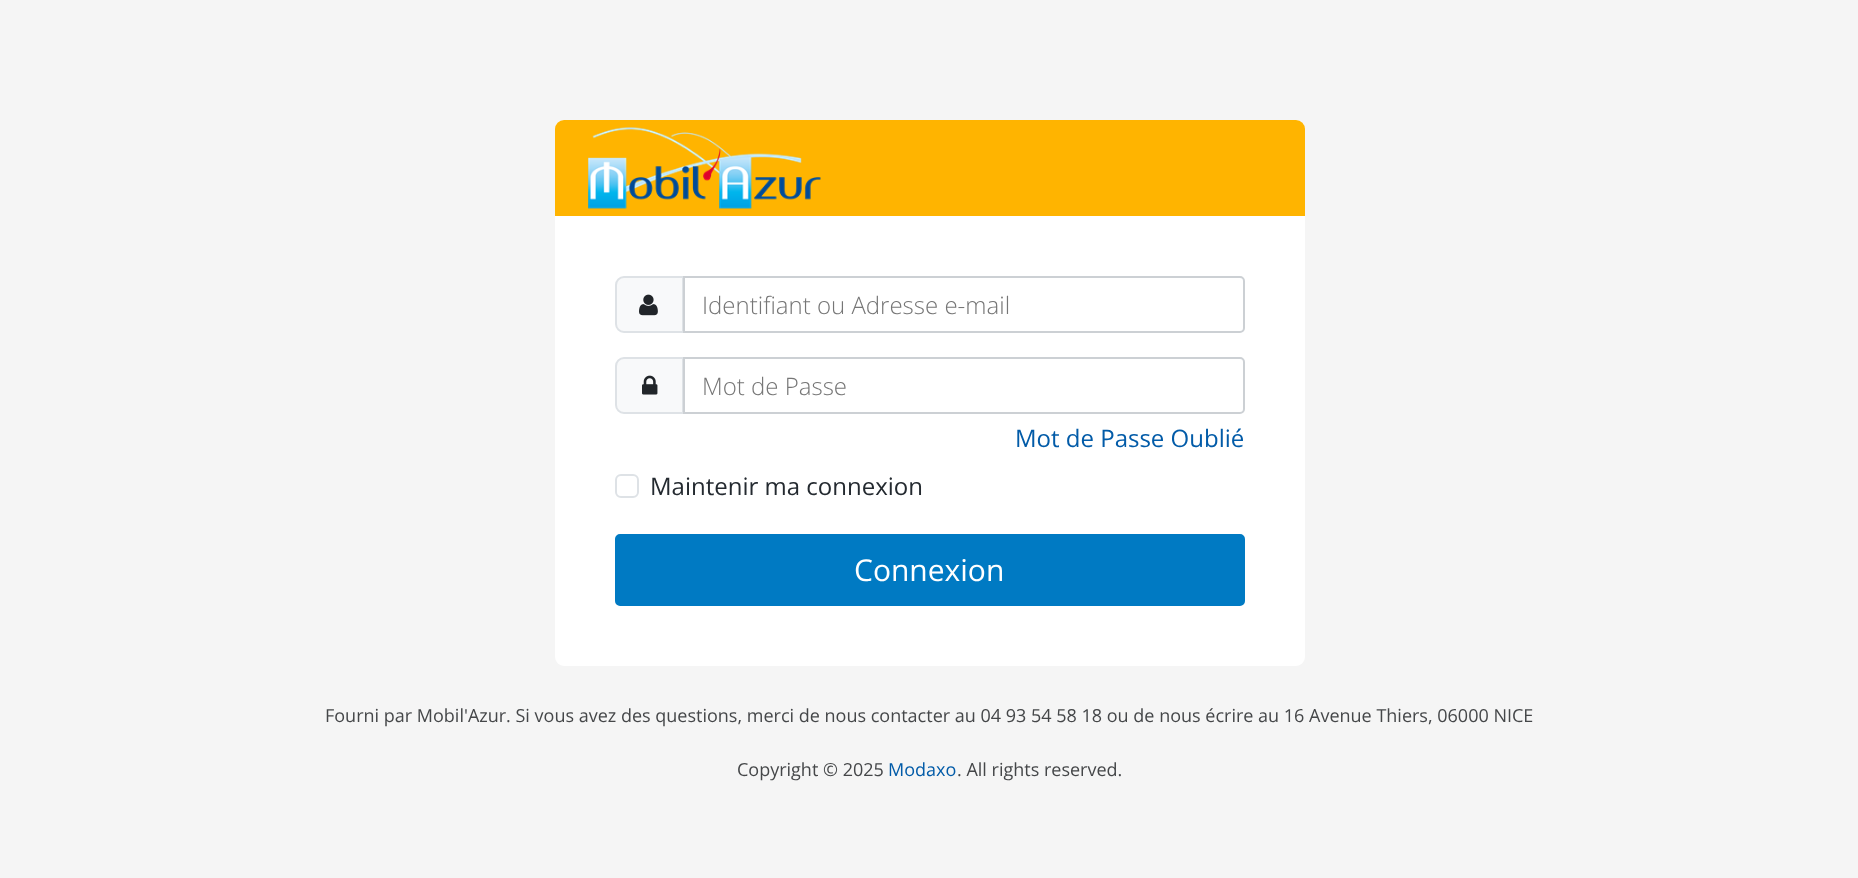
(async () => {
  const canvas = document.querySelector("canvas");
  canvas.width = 1858;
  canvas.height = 878;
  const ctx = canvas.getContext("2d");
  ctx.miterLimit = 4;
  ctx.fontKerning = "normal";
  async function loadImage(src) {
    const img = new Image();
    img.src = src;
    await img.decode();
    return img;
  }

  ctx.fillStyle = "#f5f5f5";
  ctx.fillRect(0, 0, 1858, 878);
  ctx.fillStyle = "#ffffff";
  ctx.beginPath();
  ctx.roundRect(555, 120, 750, 546, 9);
  ctx.fill();
  ctx.fillStyle = "#ffb400";
  ctx.beginPath();
  ctx.roundRect(555, 120, 750, 96, [9, 9, 0, 0]);
  ctx.fill();
  ctx.drawImage(await loadImage("img/1.png"), 588, 127, 233, 82);
  ctx.fillStyle = "#f8f9fa";
  ctx.beginPath();
  ctx.roundRect(616, 277, 67, 55, [8, 0, 0, 8]);
  ctx.fill();
  ctx.strokeStyle = "#dee2e6";
  ctx.lineWidth = 2;
  ctx.stroke();
  ctx.drawImage(await loadImage("img/2.png"), 639, 294, 19, 22);
  ctx.fillStyle = "#ffffff";
  ctx.beginPath();
  ctx.roundRect(684, 277, 560, 55, [0, 4, 4, 0]);
  ctx.fill();
  ctx.strokeStyle = "#ccd0d4";
  ctx.stroke();
  ctx.fillStyle = "#f8f9fa";
  ctx.beginPath();
  ctx.roundRect(616, 358, 67, 55, [8, 0, 0, 8]);
  ctx.fill();
  ctx.strokeStyle = "#dee2e6";
  ctx.stroke();
  ctx.drawImage(await loadImage("img/3.png"), 642, 375, 16, 20);
  ctx.fillStyle = "#ffffff";
  ctx.beginPath();
  ctx.roundRect(684, 358, 560, 55, [0, 4, 4, 0]);
  ctx.fill();
  ctx.strokeStyle = "#ccd0d4";
  ctx.stroke();
  ctx.beginPath();
  ctx.roundRect(616, 475, 22, 22, 5);
  ctx.strokeStyle = "#dee2e6";
  ctx.stroke();
  ctx.fillStyle = "#007ac3";
  ctx.beginPath();
  ctx.roundRect(616, 535, 628, 70, 4);
  ctx.fill();
  ctx.strokeStyle = "#007ac3";
  ctx.stroke();
  ctx.font = "300 24px Open Sans";
  ctx.fillStyle = "#767676";
  ctx.fillText("Identifiant ou Adresse e-mail", 702, 314);
  ctx.fillText("Mot de Passe", 702, 395);
  ctx.font = "24px Open Sans";
  ctx.fillStyle = "#025ba8";
  ctx.fillText("Mot de Passe Oublié", 1015, 447);
  ctx.fillStyle = "#242a30";
  ctx.fillText("Maintenir ma connexion", 650, 495);
  ctx.font = "30px Open Sans";
  ctx.fillStyle = "#ffffff";
  ctx.fillText("Connexion", 854, 581);
  ctx.font = "18px Open Sans";
  ctx.fillStyle = "#454749";
  ctx.fillText("Fourni par Mobil'Azur. Si vous avez des questions, merci de nous contacter au 04 93 54 58 18 ou de nous écrire au 16 Avenue Thiers, 06000 NICE", 325, 722);
  ctx.fillText("Copyright © 2025", 737, 776);
  ctx.fillStyle = "#025ba8";
  ctx.fillText("Modaxo", 888, 776);
  ctx.fillStyle = "#454749";
  ctx.fillText(". All rights reserved.", 957, 776);
})();
